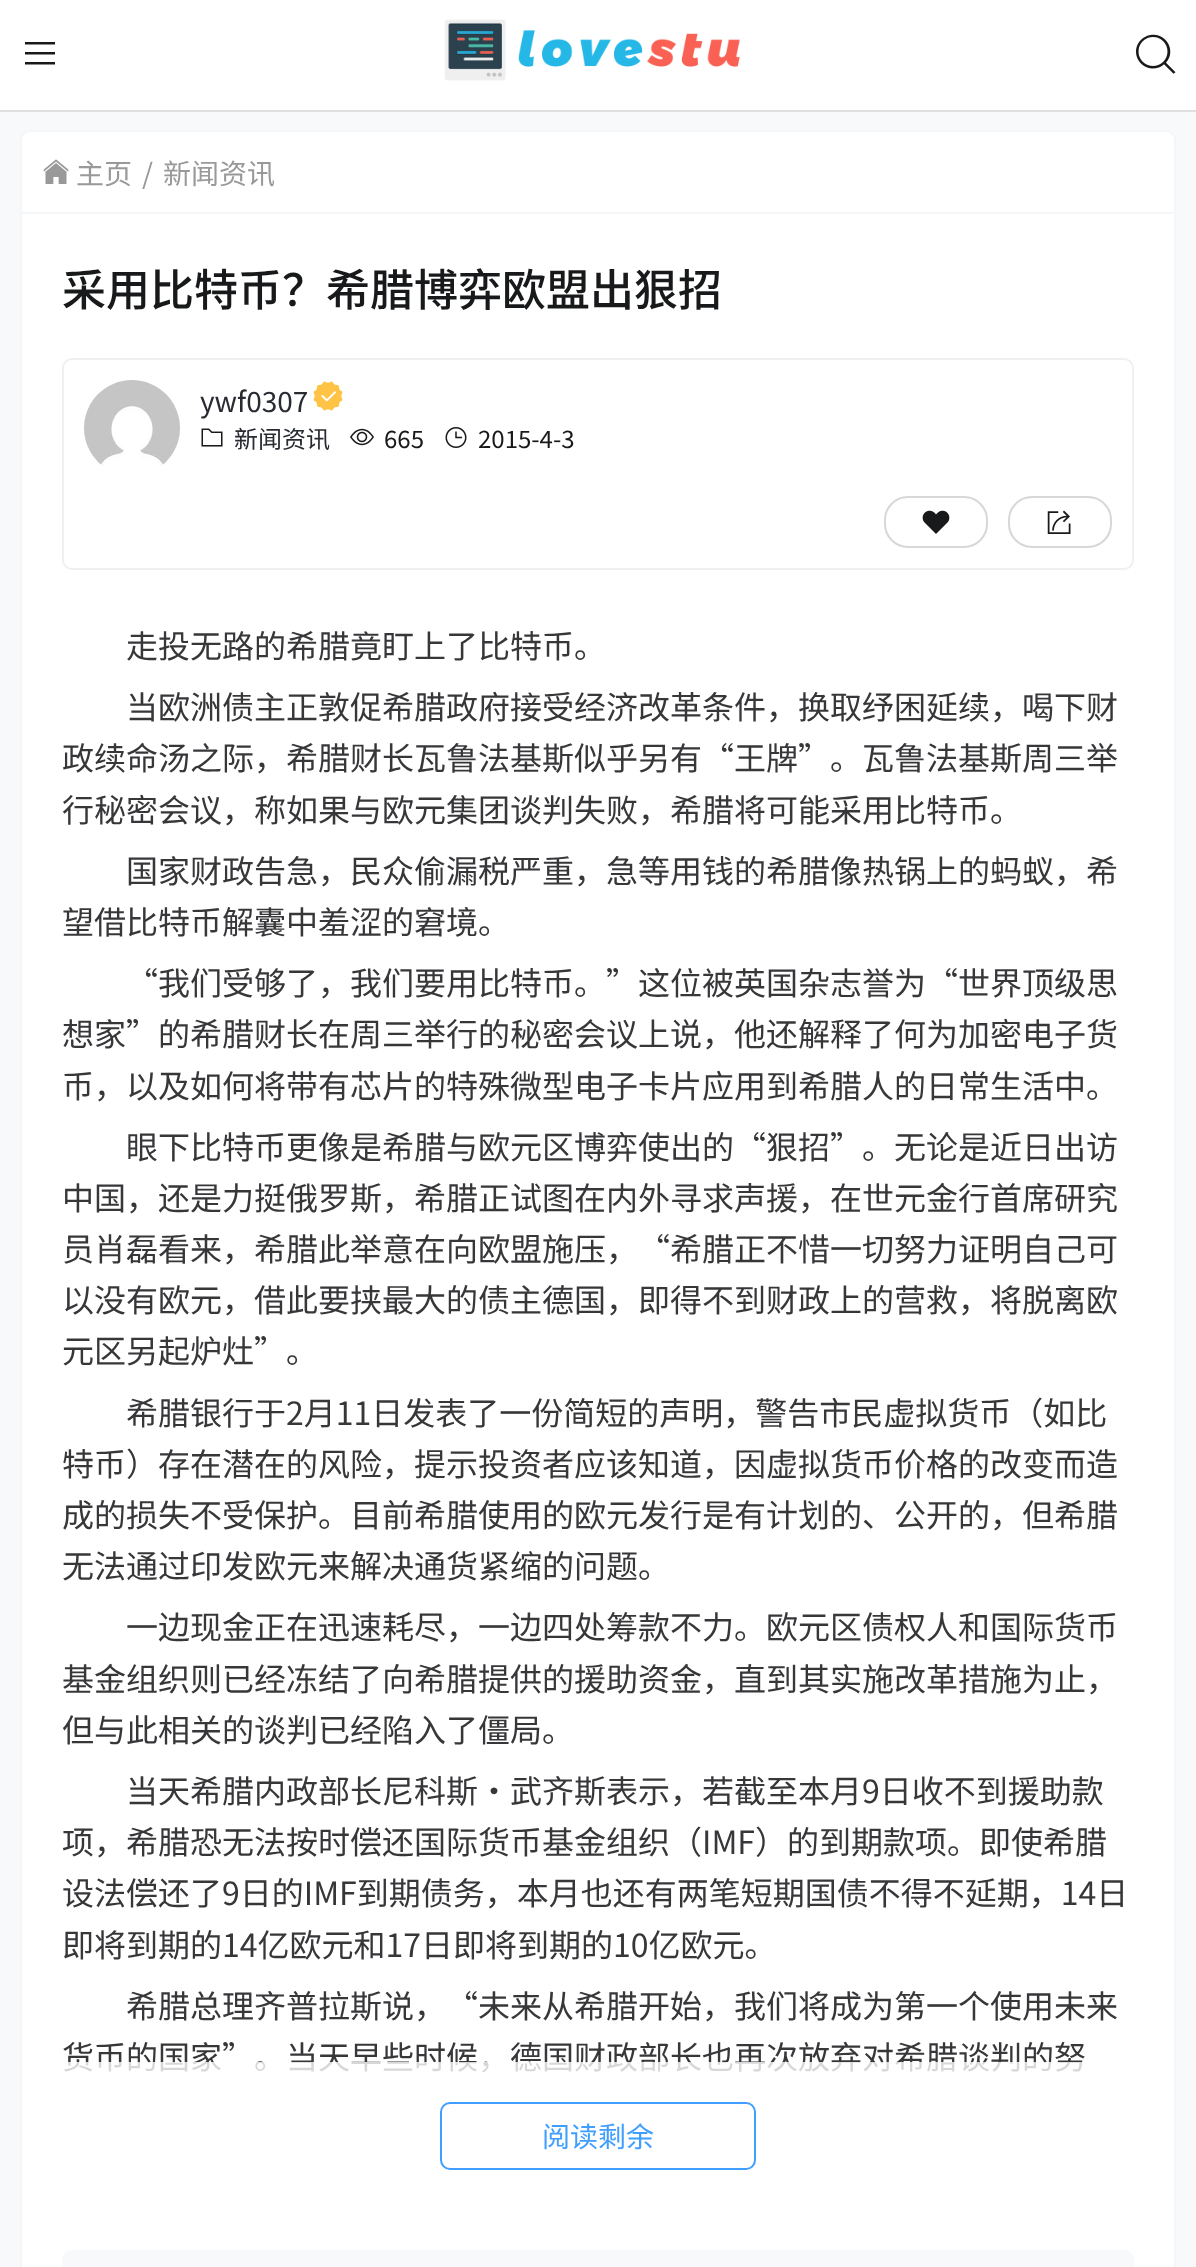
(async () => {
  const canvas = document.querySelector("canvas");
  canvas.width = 1196;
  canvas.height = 2267;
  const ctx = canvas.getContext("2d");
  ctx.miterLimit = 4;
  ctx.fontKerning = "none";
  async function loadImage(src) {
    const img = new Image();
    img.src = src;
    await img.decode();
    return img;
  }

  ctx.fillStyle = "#f7f9fa";
  ctx.fillRect(0, 0, 1196, 2267);
  ctx.fillStyle = "#ffffff";
  ctx.fillRect(0, 0, 1196, 110);
  ctx.save();
  ctx.beginPath();
  ctx.rect(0, 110, 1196, 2);
  ctx.clip();
  ctx.fillStyle = "rgba(0, 0, 0, 0.1)";
  ctx.filter = "blur(0.5px)";
  ctx.beginPath();
  ctx.rect(0, 0, 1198, 112);
  ctx.fill();
  ctx.filter = "none";
  ctx.restore();
  ctx.drawImage(await loadImage("img/1.png"), 25, 42, 30, 23);
  ctx.drawImage(await loadImage("img/2.png"), 444, 19, 296, 62);
  ctx.drawImage(await loadImage("img/3.png"), 1136, 34, 40, 40);
  ctx.beginPath();
  ctx.roundRect(21, 131, 1154, 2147, 9);
  ctx.fill();
  ctx.strokeStyle = "#f5f6f7";
  ctx.lineWidth = 2;
  ctx.stroke();
  ctx.fillStyle = "#f5f6f7";
  ctx.fillRect(22, 212, 1152, 2);
  ctx.drawImage(await loadImage("img/4.png"), 43, 159, 26, 25);
  ctx.beginPath();
  ctx.roundRect(63, 359, 1070, 210, 9);
  ctx.strokeStyle = "#f0f0f0";
  ctx.stroke();
  ctx.drawImage(await loadImage("img/5.png"), 84, 380, 96, 86);
  ctx.drawImage(await loadImage("img/6.png"), 313, 381, 30, 30);
  ctx.drawImage(await loadImage("img/7.png"), 201, 428, 22, 19);
  ctx.drawImage(await loadImage("img/8.png"), 350, 428, 24, 18);
  ctx.drawImage(await loadImage("img/9.png"), 445, 427, 22, 21);
  ctx.beginPath();
  ctx.roundRect(885, 497, 102, 50, 23);
  ctx.strokeStyle = "#d7d7d7";
  ctx.stroke();
  ctx.drawImage(await loadImage("img/10.png"), 922, 510, 28, 24);
  ctx.beginPath();
  ctx.roundRect(1009, 497, 102, 50, 23);
  ctx.stroke();
  ctx.drawImage(await loadImage("img/11.png"), 1047, 510, 24, 24);
  ctx.beginPath();
  ctx.roundRect(441, 2103, 314, 66, 9);
  ctx.strokeStyle = "#409eff";
  ctx.stroke();
  ctx.fillStyle = "#f7f9fa";
  ctx.beginPath();
  ctx.roundRect(62, 2250, 1072, 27, 10);
  ctx.fill();
  ctx.font = "28px Noto Sans CJK SC";
  ctx.fillStyle = "#999999";
  for (const [text, x, y] of [
    ["主页", 76, 184],
    ["/", 142, 184],
    ["新闻资讯", 163, 184],
  ]) {
    ctx.fillText(text, x, y);
  }
  ctx.font = "500 44px Noto Sans CJK SC";
  ctx.fillStyle = "#18191a";
  ctx.fillText("采用比特币？希腊博弈欧盟出狠招", 62, 306);
  ctx.font = "28px Noto Sans CJK SC";
  ctx.fillStyle = "#282b31";
  ctx.fillText("ywf0307", 200, 412);
  ctx.font = "24px Noto Sans CJK SC";
  ctx.fillText("新闻资讯", 234, 448);
  ctx.fillStyle = "#18191a";
  ctx.fillText("665", 384, 448);
  ctx.fillText("2015-4-3", 478, 448);
  ctx.font = "32px Noto Sans CJK SC";
  ctx.fillStyle = "#37373a";
  for (const [text, x, y] of [
    ["走投无路的希腊竟盯上了比特币。", 126, 658],
    ["当欧洲债主正敦促希腊政府接受经济改革条件，换取纾困延续，喝下财", 126, 719],
    ["政续命汤之际，希腊财长瓦鲁法基斯似乎另有“王牌”。瓦鲁法基斯周三举", 62, 770],
    ["行秘密会议，称如果与欧元集团谈判失败，希腊将可能采用比特币。", 62, 822],
    ["国家财政告急，民众偷漏税严重，急等用钱的希腊像热锅上的蚂蚁，希", 126, 883],
    ["望借比特币解囊中羞涩的窘境。", 62, 934],
    ["“我们受够了，我们要用比特币。”这位被英国杂志誉为“世界顶级思", 126, 995],
    ["想家”的希腊财长在周三举行的秘密会议上说，他还解释了何为加密电子货", 62, 1046],
    ["币，以及如何将带有芯片的特殊微型电子卡片应用到希腊人的日常生活中。", 62, 1098],
    ["眼下比特币更像是希腊与欧元区博弈使出的“狠招”。无论是近日出访", 126, 1159],
    ["中国，还是力挺俄罗斯，希腊正试图在内外寻求声援，在世元金行首席研究", 62, 1210],
    ["员肖磊看来，希腊此举意在向欧盟施压，“希腊正不惜一切努力证明自己可", 62, 1261],
    ["以没有欧元，借此要挟最大的债主德国，即得不到财政上的营救，将脱离欧", 62, 1312],
    ["元区另起炉灶”。", 62, 1363],
    ["希腊银行于2月11日发表了一份简短的声明，警告市民虚拟货币（如比", 126, 1425],
    ["特币）存在潜在的风险，提示投资者应该知道，因虚拟货币价格的改变而造", 62, 1476],
    ["成的损失不受保护。目前希腊使用的欧元发行是有计划的、公开的，但希腊", 62, 1527],
    ["无法通过印发欧元来解决通货紧缩的问题。", 62, 1578],
    ["一边现金正在迅速耗尽，一边四处筹款不力。欧元区债权人和国际货币", 126, 1639],
    ["基金组织则已经冻结了向希腊提供的援助资金，直到其实施改革措施为止，", 62, 1691],
    ["但与此相关的谈判已经陷入了僵局。", 62, 1742],
    ["当天希腊内政部长尼科斯·武齐斯表示，若截至本月9日收不到援助款", 126, 1803],
    ["项，希腊恐无法按时偿还国际货币基金组织（IMF）的到期款项。即使希腊", 62, 1854],
    ["设法偿还了9日的IMF到期债务，本月也还有两笔短期国债不得不延期，14日", 62, 1905],
    ["即将到期的14亿欧元和17日即将到期的10亿欧元。", 62, 1957],
    ["希腊总理齐普拉斯说，“未来从希腊开始，我们将成为第一个使用未来", 126, 2018],
    ["货币的国家”。当天早些时候，德国财政部长也再次放弃对希腊谈判的努", 62, 2069],
  ]) {
    ctx.fillText(text, x, y);
  }
  ctx.fillStyle = "rgba(255, 255, 255, 0.8)";
  ctx.fillRect(64, 2062, 1019, 11);
  ctx.font = "28px Noto Sans CJK SC";
  ctx.fillStyle = "#409eff";
  ctx.fillText("阅读剩余", 542, 2147);
})();
